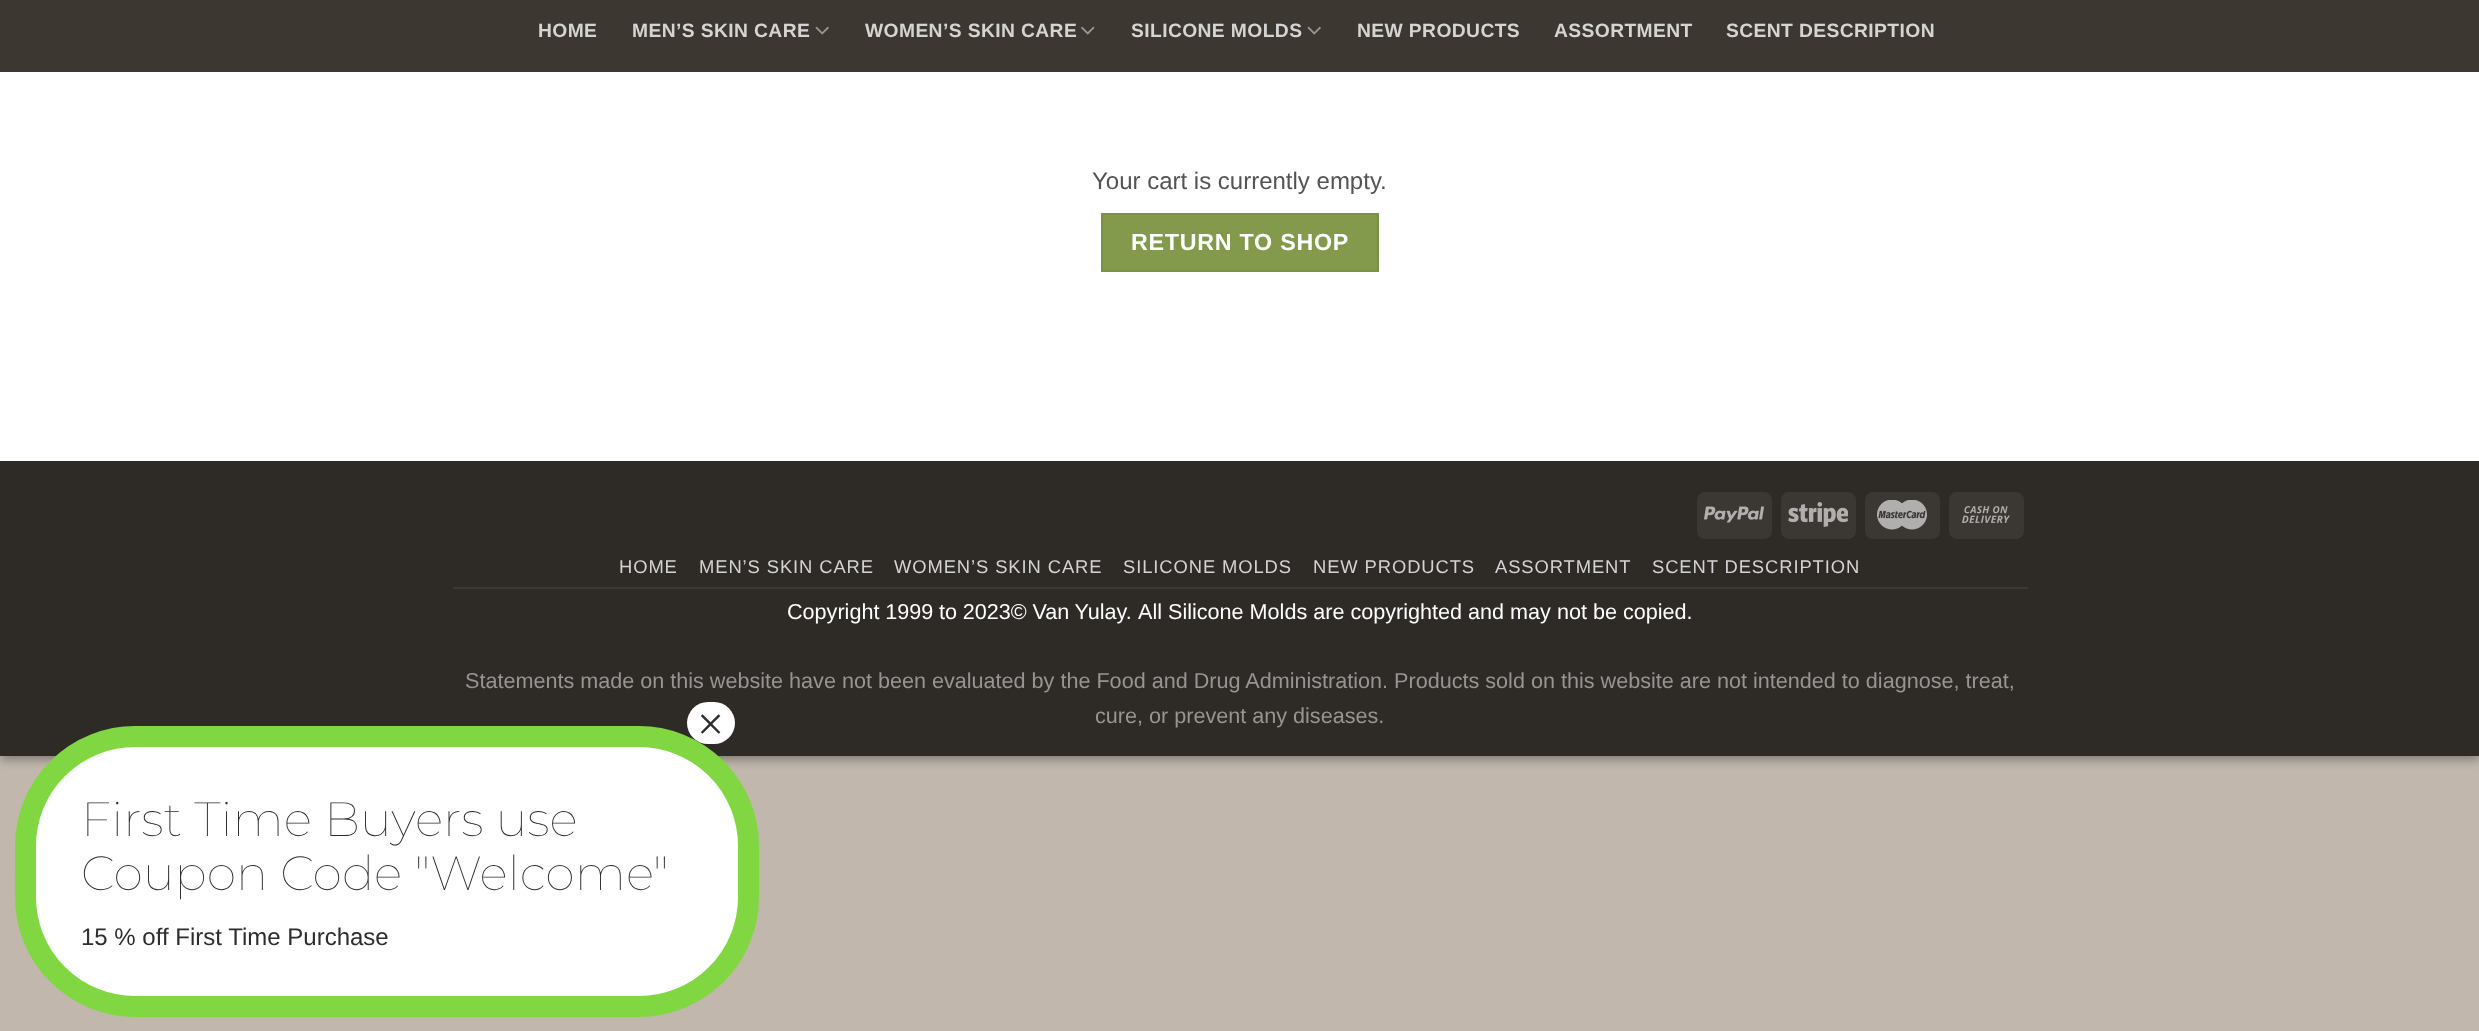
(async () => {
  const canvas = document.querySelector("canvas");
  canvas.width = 2479;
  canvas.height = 1031;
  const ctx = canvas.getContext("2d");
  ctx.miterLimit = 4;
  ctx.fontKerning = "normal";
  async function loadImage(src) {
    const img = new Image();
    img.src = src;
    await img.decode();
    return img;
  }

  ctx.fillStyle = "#c1b7ad";
  ctx.fillRect(0, 0, 2479, 1031);
  ctx.fillStyle = "rgba(0, 0, 0, 0.23)";
  ctx.filter = "blur(4.5px)";
  ctx.beginPath();
  ctx.rect(0, -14, 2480, 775);
  ctx.fill();
  ctx.filter = "none";
  ctx.fillStyle = "rgba(0, 0, 0, 0.16)";
  ctx.filter = "blur(4.5px)";
  ctx.beginPath();
  ctx.rect(6, -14, 2468, 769);
  ctx.fill();
  ctx.filter = "none";
  ctx.fillStyle = "#ffffff";
  ctx.fillRect(0, 72, 2479, 389);
  ctx.fillStyle = "#3d3731";
  ctx.fillRect(0, 0, 2479, 72);
  ctx.drawImage(await loadImage("img/1.png"), 815, 26, 14, 9);
  ctx.drawImage(await loadImage("img/2.png"), 1081, 26, 14, 9);
  ctx.drawImage(await loadImage("img/1.png"), 1307, 26, 14, 9);
  ctx.fillStyle = "#83994c";
  ctx.beginPath();
  ctx.rect(1102, 214, 276, 57);
  ctx.fill();
  ctx.strokeStyle = "#7c9148";
  ctx.lineWidth = 2;
  ctx.stroke();
  ctx.fillStyle = "#2e2a26";
  ctx.fillRect(0, 461, 2479, 295);
  ctx.fillStyle = "#3b3733";
  ctx.beginPath();
  ctx.roundRect(1697, 492, 75, 47, 8);
  ctx.fill();
  ctx.drawImage(await loadImage("img/3.png"), 1704, 506, 60, 17);
  ctx.beginPath();
  ctx.roundRect(1781, 492, 75, 47, 8);
  ctx.fill();
  ctx.drawImage(await loadImage("img/4.png"), 1788, 502, 60, 25);
  ctx.beginPath();
  ctx.roundRect(1865, 492, 75, 47, 8);
  ctx.fill();
  ctx.drawImage(await loadImage("img/5.png"), 1877, 500, 50, 30);
  ctx.beginPath();
  ctx.roundRect(1949, 492, 75, 47, 8);
  ctx.fill();
  ctx.drawImage(await loadImage("img/6.png"), 1962, 506, 48, 17);
  ctx.fillStyle = "#3b3834";
  ctx.fillRect(453, 587, 1575, 2);
  ctx.fillStyle = "#ffffff";
  ctx.beginPath();
  ctx.roundRect(25.5, 736.5, 723, 270, 109.5);
  ctx.fill();
  ctx.strokeStyle = "#81d742";
  ctx.lineWidth = 21;
  ctx.stroke();
  ctx.beginPath();
  ctx.roundRect(687, 702, 48, 42, 21);
  ctx.fill();
  ctx.letterSpacing = "0.4px";
  ctx.font = "bold 19.25px Liberation Sans";
  ctx.fillStyle = "#d5d4d4";
  for (const [text, x, y] of [
    ["HOME", 538, 37],
    ["MEN’S SKIN CARE", 632, 37],
    ["WOMEN’S SKIN CARE", 865, 37],
    ["SILICONE MOLDS", 1131, 37],
    ["NEW PRODUCTS", 1357, 37],
    ["ASSORTMENT", 1554, 37],
    ["SCENT DESCRIPTION", 1726, 37],
  ]) {
    ctx.fillText(text, x, y);
  }
  ctx.letterSpacing = "0px";
  ctx.font = "24px Liberation Sans";
  ctx.fillStyle = "#545454";
  ctx.fillText("Your cart is currently empty.", 1092, 189);
  ctx.letterSpacing = "0.75px";
  ctx.font = "bold 23.25px Liberation Sans";
  ctx.fillStyle = "#ffffff";
  ctx.fillText("RETURN TO SHOP", 1131, 250);
  ctx.letterSpacing = "0.9px";
  ctx.font = "18.4px Liberation Sans";
  ctx.fillStyle = "#d5d4d4";
  for (const [text, x, y] of [
    ["HOME", 619, 573],
    ["MEN’S SKIN CARE", 699, 573],
    ["WOMEN’S SKIN CARE", 894, 573],
    ["SILICONE MOLDS", 1123, 573],
    ["NEW PRODUCTS", 1313, 573],
    ["ASSORTMENT", 1495, 573],
    ["SCENT DESCRIPTION", 1652, 573],
  ]) {
    ctx.fillText(text, x, y);
  }
  ctx.letterSpacing = "0px";
  ctx.wordSpacing = "-0.25px";
  ctx.font = "21.6px Liberation Sans";
  ctx.fillStyle = "#ffffff";
  ctx.fillText("Copyright 1999 to 2023© Van Yulay.", 787, 619);
  ctx.wordSpacing = "0px";
  ctx.fillText("All Silicone Molds are copyrighted and may not be copied.", 1138, 619);
  ctx.fillStyle = "#979593";
  ctx.fillText("Statements made on this website have not been evaluated by the Food and Drug Administration. Products sold on this website are not intended to diagnose, treat,", 465, 688);
  ctx.fillText("cure, or prevent any diseases.", 1095, 723);
  ctx.font = "48px Liberation Serif";
  ctx.fillStyle = "#2d2d2d";
  ctx.fillText("×", 697, 740);
  ctx.font = "100 48px Montserrat";
  ctx.fillText("First Time Buyers use", 81, 836);
  ctx.fillText("Coupon Code \"Welcome\"", 81, 890);
  ctx.font = "24px Liberation Sans";
  ctx.fillText("15 % off First Time Purchase", 81, 945);
})();
